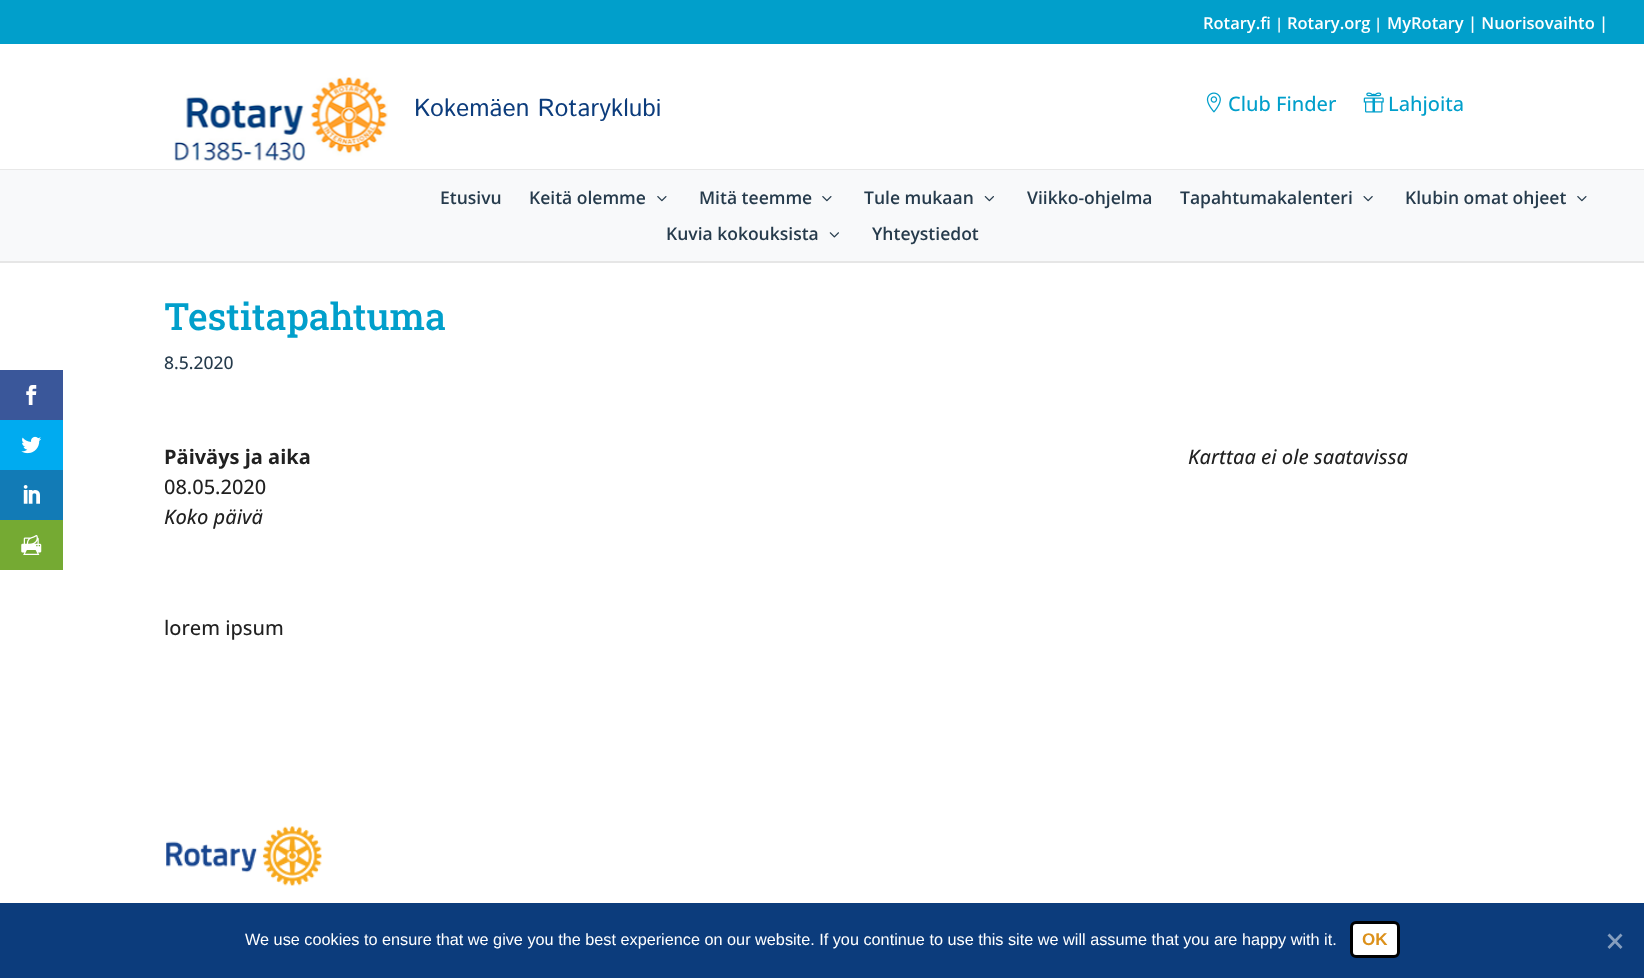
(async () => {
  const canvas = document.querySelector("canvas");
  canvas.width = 1644;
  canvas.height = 978;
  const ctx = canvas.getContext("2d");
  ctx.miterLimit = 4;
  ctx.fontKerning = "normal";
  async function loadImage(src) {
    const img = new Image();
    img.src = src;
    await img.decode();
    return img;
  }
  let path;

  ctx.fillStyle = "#ffffff";
  ctx.fillRect(0, 0, 1644, 978);
  ctx.fillStyle = "#3a579a";
  ctx.fillRect(0, 370, 63, 50);
  ctx.drawImage(await loadImage("img/1.png"), 26, 385, 11, 20);
  ctx.fillStyle = "#00abf0";
  ctx.fillRect(0, 420, 63, 50);
  ctx.drawImage(await loadImage("img/2.png"), 21, 436, 21, 18);
  ctx.fillStyle = "#127bb6";
  ctx.fillRect(0, 470, 63, 50);
  ctx.drawImage(await loadImage("img/3.png"), 23, 485, 17, 19);
  ctx.fillStyle = "#75aa33";
  ctx.fillRect(0, 520, 63, 50);
  ctx.drawImage(await loadImage("img/4.png"), 21, 535, 21, 20);
  ctx.fillStyle = "#019fcb";
  ctx.fillRect(0, 0, 1644, 44);
  ctx.fillStyle = "#e6e6e6";
  ctx.fillRect(0, 261, 1644, 2);
  ctx.drawImage(await loadImage("img/5.png"), 174, 77, 214, 84);
  ctx.drawImage(await loadImage("img/6.png"), 1206, 92, 15, 21);
  ctx.drawImage(await loadImage("img/7.png"), 1363, 92, 21, 21);
  ctx.fillStyle = "#f8f9fa";
  ctx.fillRect(0, 170, 1644, 91);
  ctx.fillStyle = "#e8e8e8";
  ctx.fillRect(0, 169, 1644, 1);
  ctx.drawImage(await loadImage("img/8.png"), 657, 196, 10, 6);
  ctx.drawImage(await loadImage("img/8.png"), 822, 196, 10, 6);
  ctx.drawImage(await loadImage("img/9.png"), 984, 196, 10, 6);
  ctx.drawImage(await loadImage("img/10.png"), 1363, 196, 10, 6);
  ctx.drawImage(await loadImage("img/8.png"), 1577, 196, 10, 6);
  ctx.drawImage(await loadImage("img/11.png"), 829, 232, 10, 6);
  ctx.drawImage(await loadImage("img/12.png"), 166, 826, 156, 60);
  ctx.fillStyle = "#0c3c7c";
  ctx.fillRect(0, 903, 1644, 75);
  ctx.fillStyle = "#ffffff";
  ctx.beginPath();
  ctx.roundRect(1351.5, 922.5, 47, 34, 4.5);
  ctx.fill();
  ctx.strokeStyle = "#000000";
  ctx.lineWidth = 3;
  ctx.stroke();
  ctx.fillStyle = "#869ebe";
  path = new Path2D("M1620.5 933.5L1622.5 935.5L1609.5 949L1607.5 947Z");
  ctx.fill(path);
  path = new Path2D("M1607.5 935.5L1609.5 933.5L1622.5 947L1620.5 949Z");
  ctx.fill(path);
  ctx.font = "600 16.5px Open Sans";
  ctx.fillStyle = "#ffffff";
  ctx.fillText("Rotary.fi", 1203, 29);
  ctx.font = "600 15px Open Sans";
  ctx.fillText("|", 1275, 29);
  ctx.font = "600 16.5px Open Sans";
  ctx.fillText("Rotary.org", 1287, 29);
  ctx.font = "600 15px Open Sans";
  ctx.fillText("|", 1374, 29);
  ctx.font = "600 16.5px Open Sans";
  ctx.fillText("MyRotary | Nuorisovaihto |", 1387, 29);
  ctx.font = "24.75px Istok Web";
  ctx.fillStyle = "#0c3c7c";
  ctx.fillText("Kokemäen Rotaryklubi", 414, 116);
  ctx.font = "500 20px Open Sans";
  ctx.fillStyle = "#019fcb";
  ctx.fillText("Club Finder", 1228, 111);
  ctx.fillText("Lahjoita", 1388, 111);
  ctx.font = "600 17.5px Open Sans";
  ctx.fillStyle = "#263b4c";
  for (const [text, x, y] of [
    ["Etusivu", 440, 204],
    ["Keitä olemme", 529, 204],
    ["Mitä teemme", 699, 204],
    ["Tule mukaan", 864, 204],
    ["Viikko-ohjelma", 1027, 204],
    ["Tapahtumakalenteri", 1180, 204],
    ["Klubin omat ohjeet", 1405, 204],
    ["Kuvia kokouksista", 666, 240],
    ["Yhteystiedot", 872, 240],
  ]) {
    ctx.fillText(text, x, y);
  }
  ctx.font = "500 37.5px Roboto Slab";
  ctx.fillStyle = "#019fcb";
  ctx.fillText("Testitapahtuma", 164, 330);
  ctx.font = "500 17.5px Open Sans";
  ctx.fillStyle = "#263b4c";
  ctx.fillText("8.5.2020", 164, 369);
  ctx.font = "bold 20px Open Sans";
  ctx.fillStyle = "#212121";
  ctx.fillText("Päiväys ja aika", 164, 464);
  ctx.font = "500 20px Open Sans";
  ctx.fillText("08.05.2020", 164, 494);
  ctx.font = "italic 500 20px Open Sans";
  ctx.fillText("Koko päivä", 164, 524);
  ctx.fillText("Karttaa ei ole saatavissa", 1188, 464);
  ctx.font = "500 20px Open Sans";
  ctx.fillText("lorem ipsum", 164, 635);
  ctx.font = "16.25px Liberation Sans";
  ctx.fillStyle = "#ffffff";
  ctx.fillText("We use cookies to ensure that we give you the best experience on our website. If you continue to use this site we will assume that you are happy with it.", 245, 945);
  ctx.font = "bold 17px Liberation Sans";
  ctx.fillStyle = "#dc911b";
  ctx.fillText("OK", 1362, 945);
})();
